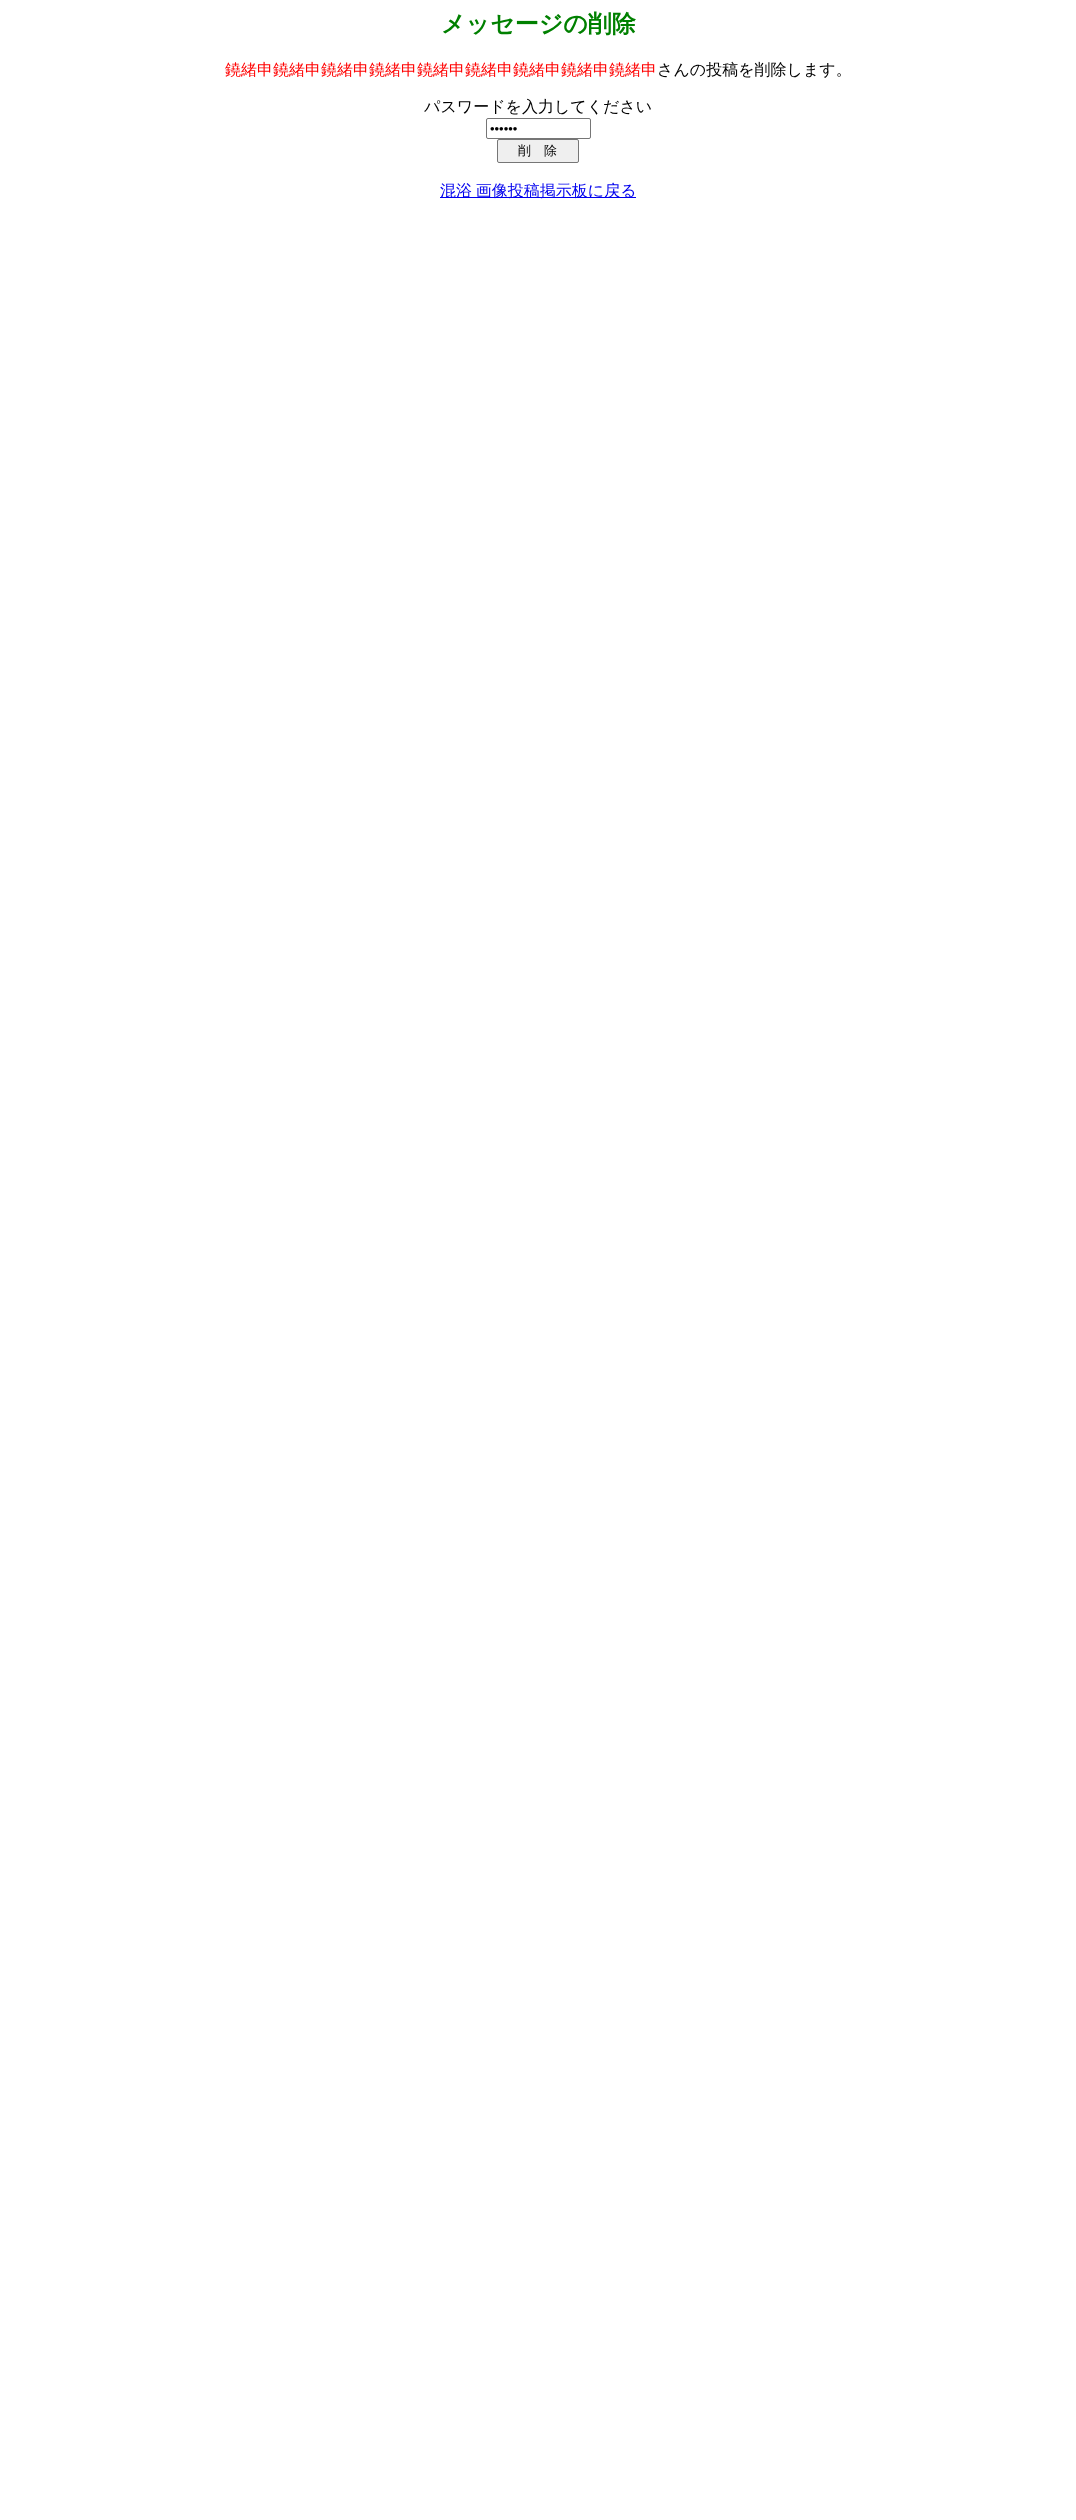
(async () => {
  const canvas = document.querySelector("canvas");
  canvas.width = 1076;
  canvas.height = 2520;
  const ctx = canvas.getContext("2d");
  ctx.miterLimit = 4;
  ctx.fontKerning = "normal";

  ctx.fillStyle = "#ffffff";
  ctx.fillRect(0, 0, 1076, 2520);
  ctx.beginPath();
  ctx.roundRect(486.5, 118.5, 104, 20, 1.5);
  ctx.strokeStyle = "#767676";
  ctx.stroke();
  ctx.fillStyle = "#efefef";
  ctx.beginPath();
  ctx.roundRect(497.5, 139.5, 81, 23, 1.5);
  ctx.fill();
  ctx.stroke();
  ctx.fillStyle = "#0000ee";
  ctx.fillRect(440, 197, 196, 1);
  ctx.font = "bold 24px WenQuanYi Zen Hei";
  ctx.fillStyle = "#008000";
  ctx.fillText("メッセージの削除", 441, 32);
  ctx.font = "500 16px WenQuanYi Zen Hei";
  ctx.fillStyle = "#ff0000";
  ctx.fillText("鐃緒申鐃緒申鐃緒申鐃緒申鐃緒申鐃緒申鐃緒申鐃緒申鐃緒申", 225, 75);
  ctx.fillStyle = "#000000";
  ctx.fillText("さんの投稿を削除します。", 657, 75);
  ctx.fillText("パスワードを入力してください", 424, 112);
  ctx.font = "13px Liberation Sans";
  ctx.fillText("••••••", 490, 133);
  ctx.font = "500 13px WenQuanYi Zen Hei";
  ctx.fillText("削　除", 518, 155);
  ctx.wordSpacing = "-1px";
  ctx.font = "500 16px WenQuanYi Zen Hei";
  ctx.fillStyle = "#0000ee";
  ctx.fillText("混浴 画像投稿掲示板に戻る", 440, 196);
})();
